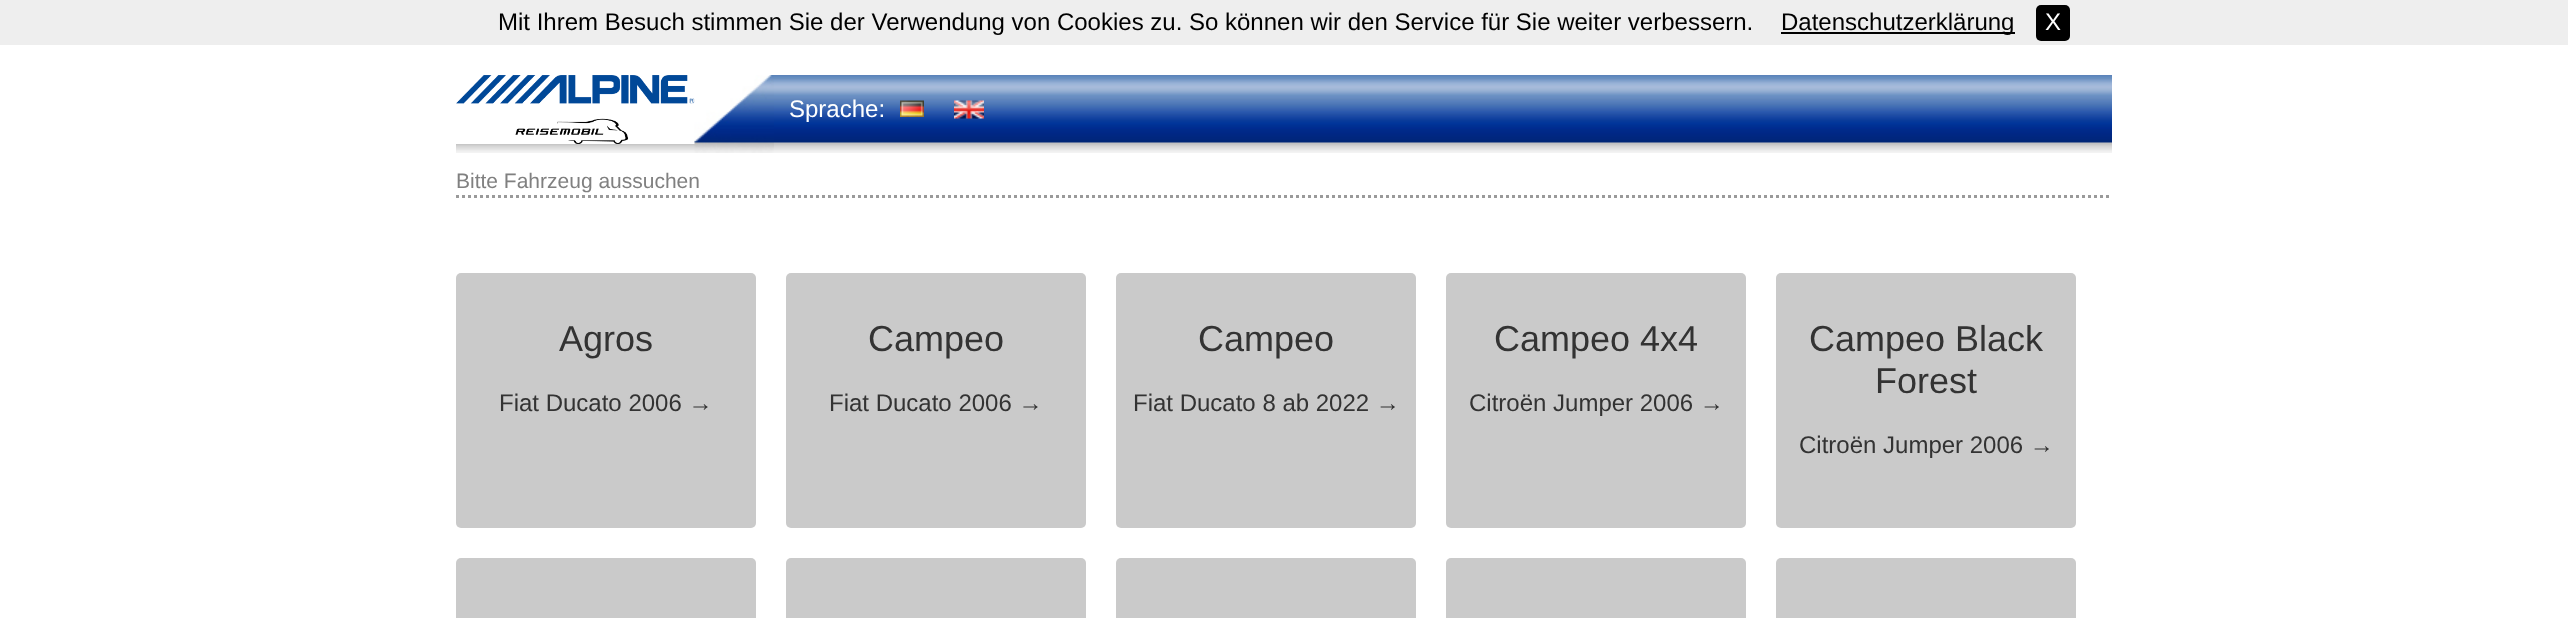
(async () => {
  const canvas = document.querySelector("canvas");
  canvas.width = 2568;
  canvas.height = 618;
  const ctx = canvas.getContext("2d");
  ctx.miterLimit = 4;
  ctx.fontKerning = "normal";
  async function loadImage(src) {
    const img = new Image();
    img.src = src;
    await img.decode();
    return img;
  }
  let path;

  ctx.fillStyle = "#eeeeee";
  ctx.fillRect(0, 0, 2568, 618);
  ctx.fillStyle = "#000000";
  ctx.fillRect(1781, 32, 234, 2);
  ctx.beginPath();
  ctx.roundRect(2036, 5, 34, 36, 5);
  ctx.fill();
  ctx.fillStyle = "#ffffff";
  ctx.fillRect(0, 45, 2568, 573);
  ctx.drawImage(await loadImage("img/1.png"), 456, 75, 1656, 78);
  ctx.drawImage(await loadImage("img/2.png"), 456, 144, 239, 6);
  ctx.fillRect(456, 75, 239, 69);
  ctx.drawImage(await loadImage("img/3.png"), 456, 75, 239, 69);
  ctx.drawImage(await loadImage("img/4.png"), 694, 75, 80, 78);
  ctx.drawImage(await loadImage("img/5.png"), 900, 100, 24, 17);
  ctx.drawImage(await loadImage("img/6.png"), 954, 100, 30, 19);
  path = new Path2D("M456 196.5H2112");
  ctx.strokeStyle = "#9a9a9a";
  ctx.lineWidth = 3;
  ctx.setLineDash([3, 3]);
  ctx.stroke(path);
  ctx.fillStyle = "#cacaca";
  ctx.beginPath();
  ctx.roundRect(456, 273, 300, 255, 5);
  ctx.fill();
  ctx.beginPath();
  ctx.roundRect(786, 273, 300, 255, 5);
  ctx.fill();
  ctx.beginPath();
  ctx.roundRect(1116, 273, 300, 255, 5);
  ctx.fill();
  ctx.beginPath();
  ctx.roundRect(1446, 273, 300, 255, 5);
  ctx.fill();
  ctx.beginPath();
  ctx.roundRect(1776, 273, 300, 255, 5);
  ctx.fill();
  ctx.beginPath();
  ctx.roundRect(456, 558, 300, 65, 5);
  ctx.fill();
  ctx.beginPath();
  ctx.roundRect(786, 558, 300, 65, 5);
  ctx.fill();
  ctx.beginPath();
  ctx.roundRect(1116, 558, 300, 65, 5);
  ctx.fill();
  ctx.beginPath();
  ctx.roundRect(1446, 558, 300, 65, 5);
  ctx.fill();
  ctx.beginPath();
  ctx.roundRect(1776, 558, 300, 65, 5);
  ctx.fill();
  ctx.font = "24px Liberation Sans";
  ctx.fillStyle = "#000000";
  ctx.fillText("Mit Ihrem Besuch stimmen Sie der Verwendung von Cookies zu. So können wir den Service für Sie weiter verbessern.", 498, 30);
  ctx.fillText("Datenschutzerklärung", 1781, 30);
  ctx.fillStyle = "#ffffff";
  ctx.fillText("X", 2045, 30);
  ctx.fillText("Sprache:", 789, 117);
  ctx.font = "21px Liberation Sans";
  ctx.fillStyle = "#808080";
  ctx.fillText("Bitte Fahrzeug aussuchen", 456, 188);
  ctx.font = "36px Liberation Sans";
  ctx.fillStyle = "#333333";
  ctx.fillText("Agros", 559, 351);
  ctx.font = "24px Liberation Sans";
  ctx.fillText("Fiat Ducato 2006 →", 499, 411);
  ctx.font = "36px Liberation Sans";
  ctx.fillText("Campeo", 868, 351);
  ctx.font = "24px Liberation Sans";
  ctx.fillText("Fiat Ducato 2006 →", 829, 411);
  ctx.font = "36px Liberation Sans";
  ctx.fillText("Campeo", 1198, 351);
  ctx.font = "24px Liberation Sans";
  ctx.fillText("Fiat Ducato 8 ab 2022 →", 1133, 411);
  ctx.font = "36px Liberation Sans";
  ctx.fillText("Campeo 4x4", 1494, 351);
  ctx.font = "24px Liberation Sans";
  ctx.fillText("Citroën Jumper 2006 →", 1469, 411);
  ctx.font = "36px Liberation Sans";
  ctx.fillText("Campeo Black", 1809, 351);
  ctx.fillText("Forest", 1875, 393);
  ctx.font = "24px Liberation Sans";
  ctx.fillText("Citroën Jumper 2006 →", 1799, 453);
})();
